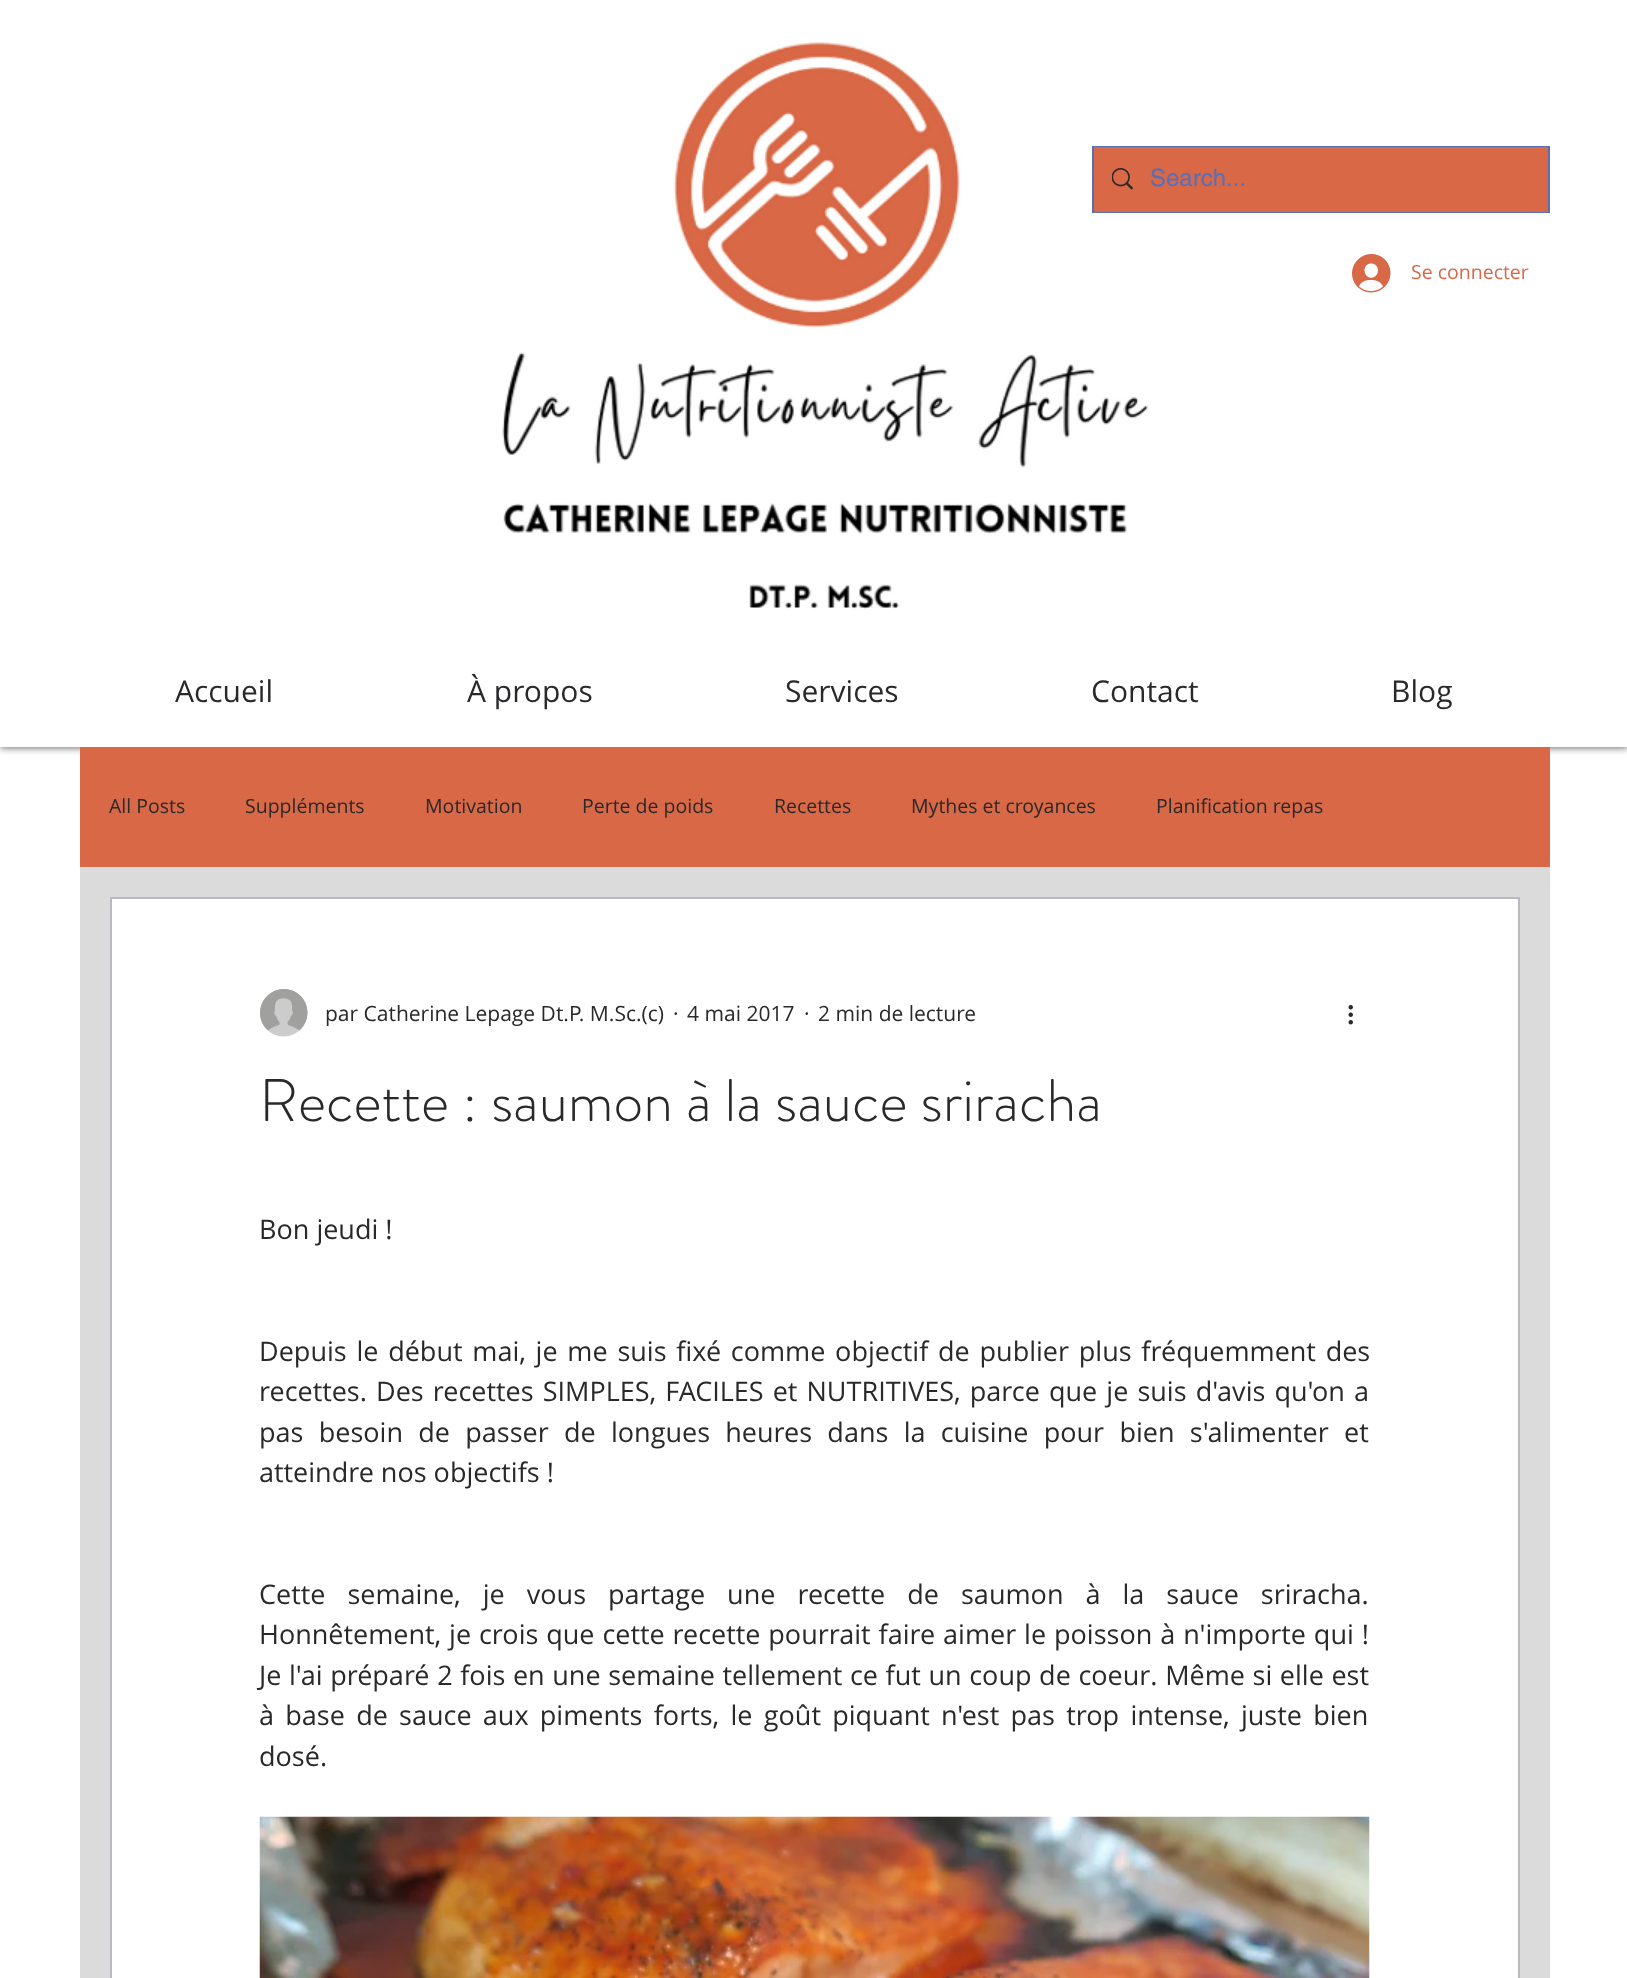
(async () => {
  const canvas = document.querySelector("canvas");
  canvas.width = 1627;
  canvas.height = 1978;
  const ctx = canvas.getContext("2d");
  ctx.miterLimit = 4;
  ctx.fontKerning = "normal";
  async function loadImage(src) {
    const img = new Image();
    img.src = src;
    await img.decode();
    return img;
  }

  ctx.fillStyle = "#ffffff";
  ctx.fillRect(0, 0, 1627, 1978);
  ctx.save();
  ctx.beginPath();
  ctx.rect(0, 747, 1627, 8);
  ctx.clip();
  ctx.fillStyle = "rgba(0, 0, 0, 0.7)";
  ctx.filter = "blur(4px)";
  ctx.beginPath();
  ctx.rect(0, 0, 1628, 747);
  ctx.fill();
  ctx.filter = "none";
  ctx.restore();
  ctx.drawImage(await loadImage("img/1.png"), 502, 41, 647, 569);
  ctx.strokeStyle = "#566fb8";
  ctx.lineWidth = 2;
  ctx.strokeRect(1093, 147, 456, 65);
  ctx.fillStyle = "#d96846";
  ctx.fillRect(1094, 147, 454, 65);
  ctx.drawImage(await loadImage("img/2.png"), 1112, 168, 21, 22);
  ctx.drawImage(await loadImage("img/3.png"), 1352, 254, 39, 39);
  ctx.fillStyle = "#dbdbdb";
  ctx.fillRect(80, 867, 1470, 1111);
  ctx.fillStyle = "#d96846";
  ctx.fillRect(80, 747, 1470, 120);
  ctx.fillStyle = "#ffffff";
  ctx.beginPath();
  ctx.rect(111, 898, 1408, 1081);
  ctx.fill();
  ctx.strokeStyle = "#bbb9c0";
  ctx.stroke();
  ctx.drawImage(await loadImage("img/4.png"), 260, 989, 48, 48);
  ctx.drawImage(await loadImage("img/5.png"), 1348, 1005, 5, 20);
  ctx.drawImage(await loadImage("img/6.png"), 259, 1816, 1111, 162);
  ctx.font = "24px helvetica";
  ctx.fillStyle = "#566fb8";
  ctx.fillText("Search...", 1150, 186);
  ctx.font = "19.5px Open Sans";
  ctx.fillStyle = "#d96846";
  ctx.fillText("Se connecter", 1411, 279);
  ctx.font = "30px Open Sans";
  ctx.fillStyle = "#29292b";
  for (const [text, x, y] of [
    ["Accueil", 175, 702],
    ["À propos", 467, 702],
    ["Services", 785, 702],
    ["Contact", 1091, 702],
    ["Blog", 1391, 702],
  ]) {
    ctx.fillText(text, x, y);
  }
  ctx.font = "19.5px Open Sans";
  for (const [text, x, y] of [
    ["All Posts", 109, 813],
    ["Suppléments", 245, 813],
    ["Motivation", 425, 813],
    ["Perte de poids", 582, 813],
    ["Recettes", 774, 813],
    ["Mythes et croyances", 911, 813],
    ["Planification repas", 1156, 813],
  ]) {
    ctx.fillText(text, x, y);
  }
  ctx.font = "21px Open Sans";
  for (const [text, x, y] of [
    ["par Catherine Lepage Dt.P. M.Sc.(c)", 325, 1021],
    ["·", 673, 1021],
    ["4 mai 2017", 687, 1021],
    ["·", 804, 1021],
    ["2 min de lecture", 818, 1021],
  ]) {
    ctx.fillText(text, x, y);
  }
  ctx.font = "300 60px 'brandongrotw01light'";
  ctx.fillText("Recette : saumon à la sauce sriracha", 259, 1121);
  ctx.font = "27px Open Sans";
  ctx.fillText("Bon jeudi !", 259, 1239);
  ctx.wordSpacing = "2.75px";
  ctx.fillText("Depuis le début mai, je me suis fixé comme objectif de publier plus fréquemment des", 259, 1361);
  ctx.wordSpacing = "2.1px";
  ctx.fillText("recettes. Des recettes SIMPLES, FACILES et NUTRITIVES, parce que je suis d'avis qu'on a", 259, 1401);
  ctx.wordSpacing = "8.25px";
  ctx.fillText("pas besoin de passer de longues heures dans la cuisine pour bien s'alimenter et", 259, 1442);
  ctx.wordSpacing = "0px";
  ctx.fillText("atteindre nos objectifs !", 259, 1482);
  ctx.wordSpacing = "15px";
  ctx.fillText("Cette semaine, je vous partage une recette de saumon à la sauce sriracha.", 259, 1604);
  ctx.wordSpacing = "0.9px";
  ctx.fillText("Honnêtement, je crois que cette recette pourrait faire aimer le poisson à n'importe qui !", 259, 1644);
  ctx.wordSpacing = "0.6px";
  ctx.fillText("Je l'ai préparé 2 fois en une semaine tellement ce fut un coup de coeur. Même si elle est", 259, 1685);
  ctx.wordSpacing = "4.25px";
  ctx.fillText("à base de sauce aux piments forts, le goût piquant n'est pas trop intense, juste bien", 259, 1725);
  ctx.wordSpacing = "0px";
  ctx.fillText("dosé.", 259, 1766);
})();
